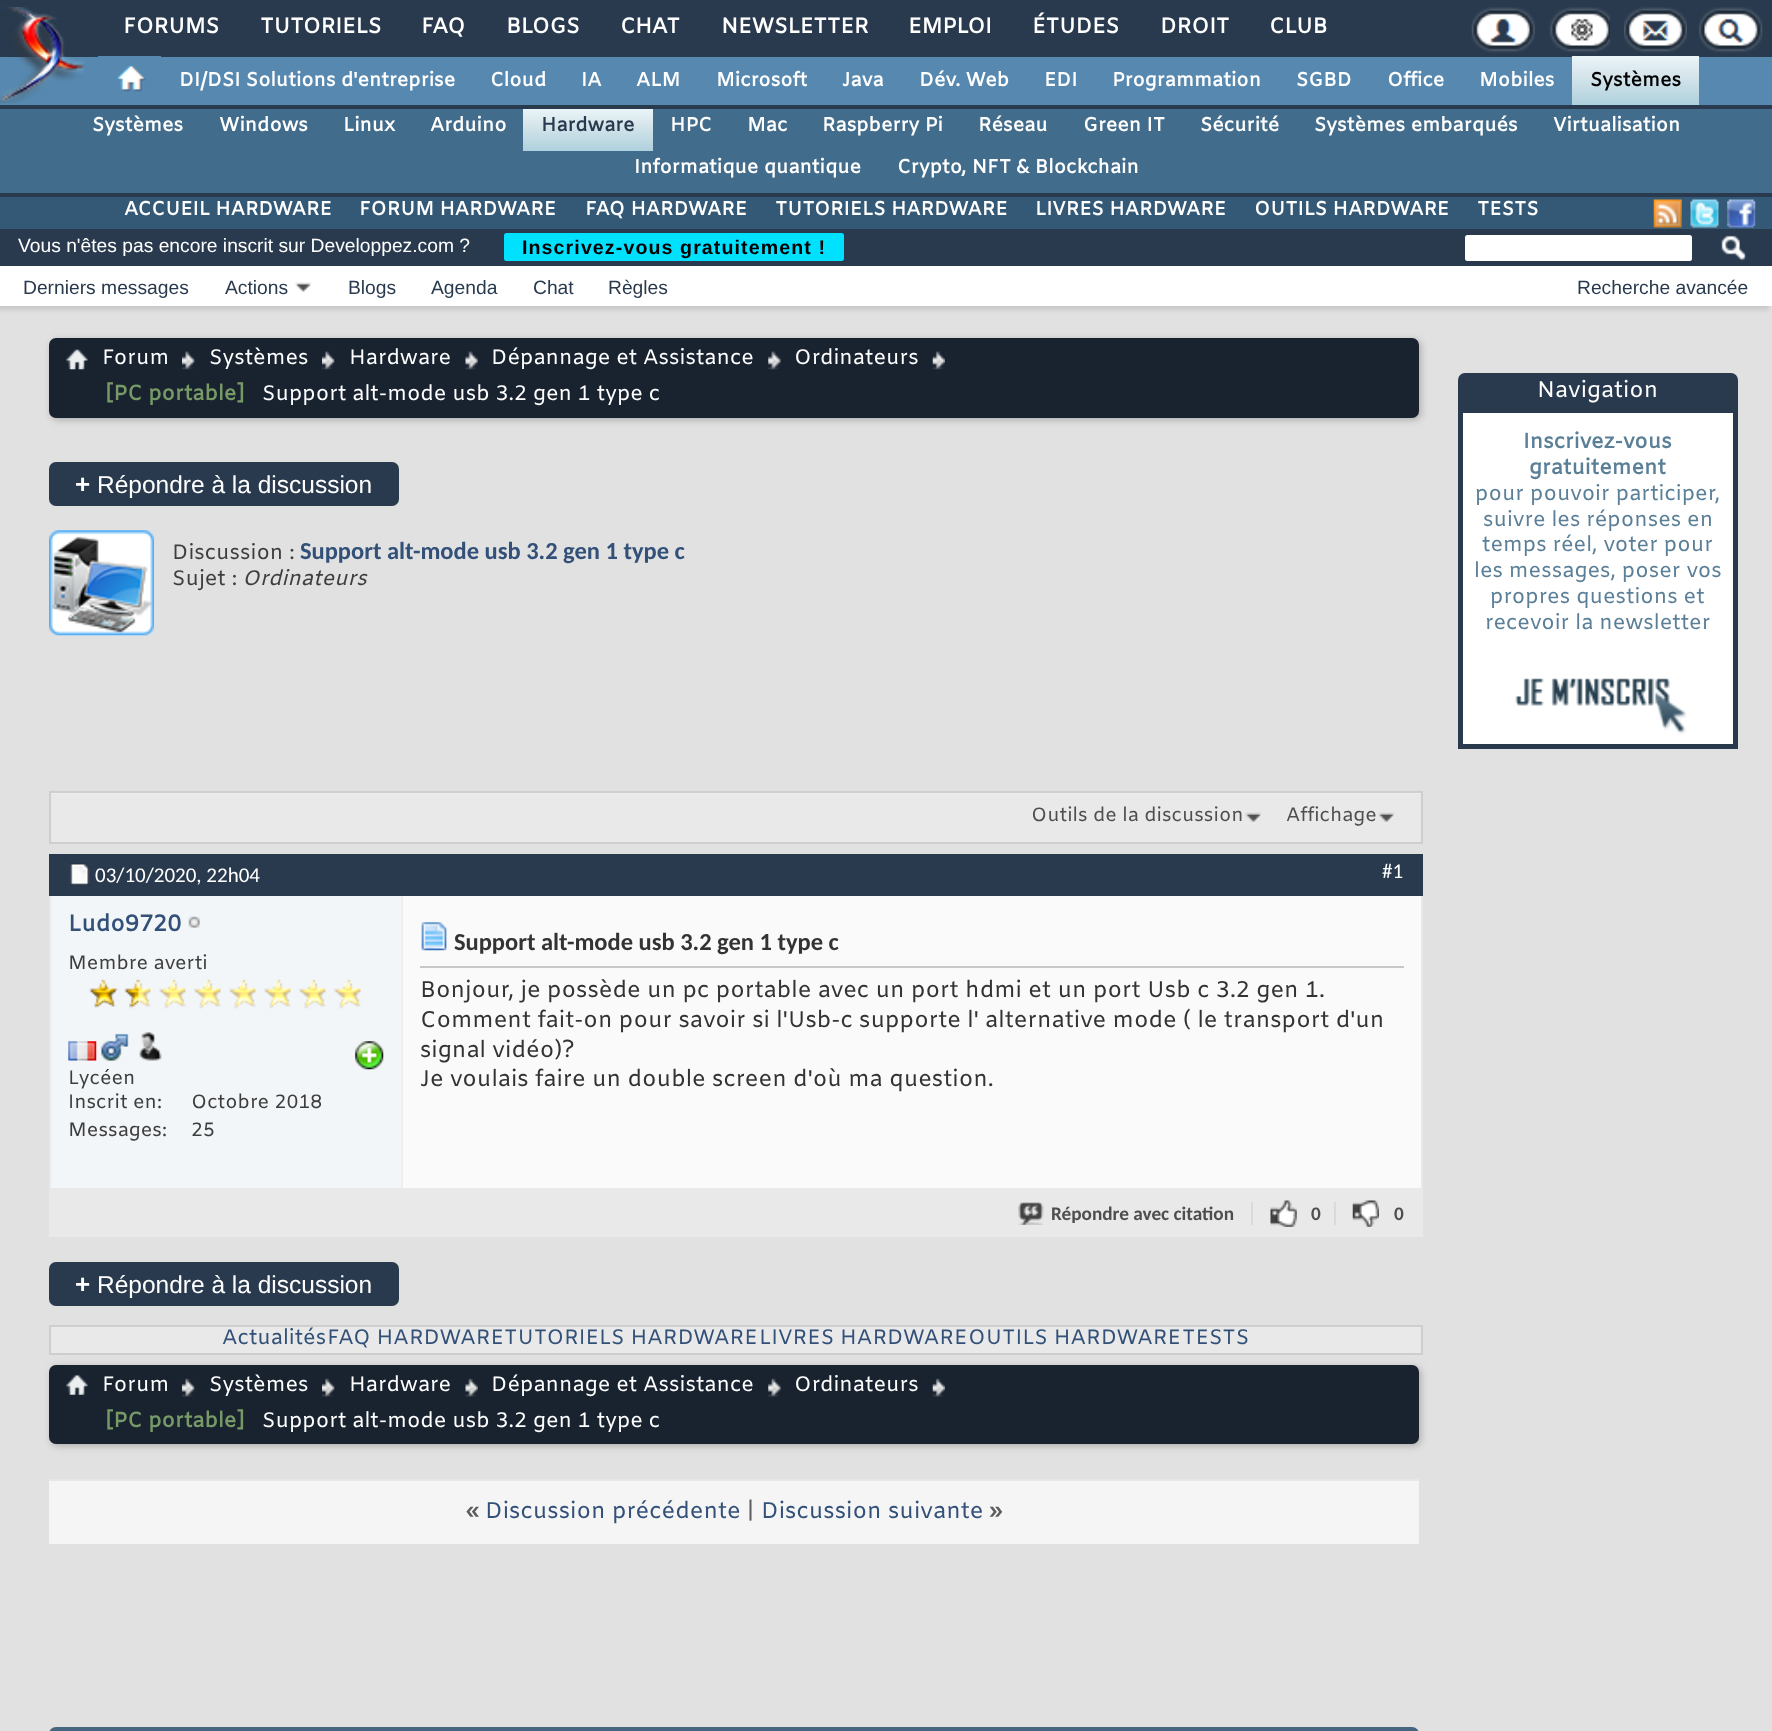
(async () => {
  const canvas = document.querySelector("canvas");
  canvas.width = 1772;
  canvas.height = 1731;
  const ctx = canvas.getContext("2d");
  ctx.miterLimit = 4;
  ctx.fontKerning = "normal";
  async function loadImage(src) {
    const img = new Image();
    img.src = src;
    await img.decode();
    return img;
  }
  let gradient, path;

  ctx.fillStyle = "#293a4e";
  ctx.fillRect(0, 0, 1772, 1731);
  ctx.fillStyle = "#5789b0";
  ctx.fillRect(0, 57, 1772, 48);
  ctx.drawImage(await loadImage("img/1.png"), 0, 7, 84, 97);
  ctx.drawImage(await loadImage("img/2.png"), 1471, 7, 64, 46);
  ctx.drawImage(await loadImage("img/3.png"), 1549, 7, 61, 46);
  ctx.drawImage(await loadImage("img/4.png"), 1624, 7, 63, 46);
  ctx.drawImage(await loadImage("img/5.png"), 1699, 7, 64, 46);
  ctx.drawImage(await loadImage("img/6.png"), 98, 56, 63, 36);
  gradient = ctx.createLinearGradient(1635, 56, 1635, 105);
  gradient.addColorStop(0, "#eaf5f8");
  gradient.addColorStop(0.37, "#d8e6ec");
  gradient.addColorStop(1, "#aed1dd");
  ctx.fillStyle = gradient;
  ctx.fillRect(1572, 56, 127, 49);
  ctx.fillStyle = "#426c8c";
  ctx.fillRect(0, 109, 1772, 84);
  gradient = ctx.createLinearGradient(588, 108, 588, 151);
  gradient.addColorStop(0, "#eaf5f8");
  gradient.addColorStop(0.37, "#d8e6ec");
  gradient.addColorStop(1, "#aed1dd");
  ctx.fillStyle = gradient;
  ctx.fillRect(523, 109, 130, 42);
  ctx.fillStyle = "#345976";
  ctx.fillRect(0, 197, 1772, 32);
  ctx.drawImage(await loadImage("img/7.png"), 1653, 199, 29, 29);
  ctx.drawImage(await loadImage("img/8.png"), 1690, 199, 29, 29);
  ctx.drawImage(await loadImage("img/9.png"), 1727, 199, 29, 29);
  ctx.fillStyle = "#e1e1e2";
  ctx.fillRect(0, 306, 1772, 1425);
  ctx.fillStyle = "#c8c8c8";
  ctx.filter = "blur(2px)";
  ctx.beginPath();
  ctx.rect(-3, 233, 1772, 77);
  ctx.fill();
  ctx.filter = "none";
  ctx.fillStyle = "#ffffff";
  ctx.fillRect(0, 266, 1772, 40);
  ctx.fillStyle = "#293a4e";
  ctx.fillRect(0, 229, 1772, 37);
  ctx.fillStyle = "#00e0ff";
  ctx.beginPath();
  ctx.roundRect(504, 233, 340, 28, 2.5);
  ctx.fill();
  ctx.drawImage(await loadImage("img/10.png"), 295, 282, 17, 10);
  ctx.fillStyle = "#ffffff";
  ctx.beginPath();
  ctx.roundRect(1465, 235, 227, 26, 2.5);
  ctx.fill();
  ctx.drawImage(await loadImage("img/11.png"), 1721, 235, 25, 26);
  ctx.fillStyle = "#adadad";
  ctx.filter = "blur(3.5px)";
  ctx.beginPath();
  ctx.roundRect(51, 340, 1370, 80, 7);
  ctx.fill();
  ctx.filter = "none";
  ctx.fillStyle = "#192330";
  ctx.beginPath();
  ctx.roundRect(49, 338, 1370, 80, 7);
  ctx.fill();
  ctx.drawImage(await loadImage("img/12.png"), 66, 349, 22, 21);
  ctx.drawImage(await loadImage("img/13.png"), 182, 351, 13, 19);
  ctx.drawImage(await loadImage("img/14.png"), 322, 351, 13, 19);
  ctx.drawImage(await loadImage("img/15.png"), 465, 351, 13, 19);
  ctx.drawImage(await loadImage("img/16.png"), 768, 351, 13, 19);
  ctx.drawImage(await loadImage("img/17.png"), 932, 351, 13, 19);
  ctx.fillStyle = "#293a4e";
  ctx.beginPath();
  ctx.roundRect(49, 462, 350, 44, 7);
  ctx.fill();
  ctx.drawImage(await loadImage("img/18.png"), 49, 530, 105, 106);
  ctx.fillStyle = "#e9e9e9";
  ctx.fillRect(51, 794, 1370, 48);
  ctx.fillStyle = "#ededed";
  ctx.fillRect(49, 793, 1373, 1);
  ctx.strokeStyle = "#cecece";
  ctx.lineWidth = 2;
  ctx.strokeRect(50, 792, 1372, 51);
  ctx.drawImage(await loadImage("img/19.png"), 1245, 812, 17, 12);
  ctx.drawImage(await loadImage("img/20.png"), 1378, 812, 17, 12);
  ctx.strokeStyle = "#e9e9e9";
  ctx.strokeRect(50, 855, 1372, 381);
  ctx.fillStyle = "#293a4e";
  ctx.fillRect(49, 854, 1374, 42);
  ctx.drawImage(await loadImage("img/21.png"), 69, 863, 21, 23);
  ctx.fillStyle = "#f2f6f8";
  ctx.fillRect(51, 896, 350, 292);
  ctx.drawImage(await loadImage("img/22.png"), 188, 916, 12, 12);
  ctx.drawImage(await loadImage("img/23.png"), 89, 979, 29, 30);
  ctx.drawImage(await loadImage("img/24.png"), 124, 979, 28, 30);
  ctx.drawImage(await loadImage("img/25.png"), 159, 979, 28, 30);
  ctx.drawImage(await loadImage("img/25.png"), 194, 979, 28, 30);
  ctx.drawImage(await loadImage("img/26.png"), 229, 979, 28, 30);
  ctx.drawImage(await loadImage("img/26.png"), 264, 979, 28, 30);
  ctx.drawImage(await loadImage("img/26.png"), 299, 979, 28, 30);
  ctx.drawImage(await loadImage("img/26.png"), 334, 979, 28, 30);
  ctx.drawImage(await loadImage("img/27.png"), 355, 1041, 29, 29);
  ctx.drawImage(await loadImage("img/28.png"), 68, 1041, 29, 20);
  ctx.drawImage(await loadImage("img/29.png"), 101, 1033, 28, 28);
  ctx.drawImage(await loadImage("img/30.png"), 139, 1032, 23, 29);
  for (const [x, y, w, h, color] of [
    [403, 896, 1018, 292, "#fafafa"],
    [401, 896, 2, 292, "#efefef"],
    [420, 966, 984, 2, "#c8c8c8"],
  ]) {
    ctx.fillStyle = color;
    ctx.fillRect(x, y, w, h);
  }
  ctx.drawImage(await loadImage("img/31.png"), 421, 922, 26, 29);
  ctx.fillStyle = "#e9e9e9";
  ctx.fillRect(51, 1188, 1370, 47);
  ctx.drawImage(await loadImage("img/32.png"), 1018, 1202, 26, 23);
  ctx.fillStyle = "#dadada";
  ctx.fillRect(1251, 1202, 2, 23);
  ctx.drawImage(await loadImage("img/33.png"), 1270, 1200, 27, 27);
  ctx.fillRect(1334, 1202, 2, 23);
  ctx.drawImage(await loadImage("img/34.png"), 1352, 1200, 27, 27);
  ctx.fillStyle = "#293a4e";
  ctx.beginPath();
  ctx.roundRect(49, 1262, 350, 44, 7);
  ctx.fill();
  ctx.fillStyle = "#e9e9e9";
  ctx.beginPath();
  ctx.rect(50, 1326, 1372, 28);
  ctx.fill();
  ctx.strokeStyle = "#cecece";
  ctx.stroke();
  ctx.fillStyle = "#adadad";
  ctx.filter = "blur(3.5px)";
  ctx.beginPath();
  ctx.roundRect(51, 1367, 1370, 79, 7);
  ctx.fill();
  ctx.filter = "none";
  ctx.fillStyle = "#192330";
  ctx.beginPath();
  ctx.roundRect(49, 1365, 1370, 79, 7);
  ctx.fill();
  ctx.drawImage(await loadImage("img/35.png"), 66, 1374, 22, 21);
  ctx.drawImage(await loadImage("img/36.png"), 182, 1378, 13, 19);
  ctx.drawImage(await loadImage("img/37.png"), 322, 1378, 13, 19);
  ctx.drawImage(await loadImage("img/38.png"), 465, 1378, 13, 19);
  ctx.drawImage(await loadImage("img/39.png"), 768, 1378, 13, 19);
  ctx.drawImage(await loadImage("img/40.png"), 932, 1378, 13, 19);
  ctx.fillStyle = "#f5f5f5";
  ctx.fillRect(49, 1481, 1370, 63);
  ctx.fillStyle = "#e7e7e7";
  ctx.fillRect(49, 1479, 1370, 2);
  ctx.fillStyle = "#45667e";
  path = new Path2D("M56 1728H1412C1415.5 1728 1418 1730.5 1418 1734V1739H50V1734C50 1730.5 52.5 1728 56 1728Z");
  ctx.fill(path);
  ctx.strokeStyle = "#45667e";
  ctx.stroke(path);
  ctx.fillStyle = "#293a4e";
  ctx.beginPath();
  ctx.roundRect(1460.5, 375.5, 275, 371, [4.5, 4.5, 0, 0]);
  ctx.fill();
  ctx.strokeStyle = "#293a4e";
  ctx.lineWidth = 5;
  ctx.stroke();
  ctx.fillStyle = "#ffffff";
  ctx.fillRect(1463, 413, 270, 331);
  ctx.drawImage(await loadImage("img/41.png"), 1515, 678, 172, 57);
  ctx.letterSpacing = "-0.25px";
  ctx.font = "bold 21.5px Amiko";
  for (const [text, x, y] of [
    ["FORUMS", 123, 33],
    ["TUTORIELS", 260, 33],
    ["FAQ", 421, 33],
    ["BLOGS", 506, 33],
  ]) {
    ctx.fillText(text, x, y);
  }
  ctx.letterSpacing = "-0.5px";
  ctx.fillText("CHAT", 620, 33);
  ctx.letterSpacing = "-0.25px";
  for (const [text, x, y] of [
    ["NEWSLETTER", 721, 33],
    ["EMPLOI", 908, 33],
    ["ÉTUDES", 1032, 33],
    ["DROIT", 1160, 33],
    ["CLUB", 1269, 33],
  ]) {
    ctx.fillText(text, x, y);
  }
  ctx.letterSpacing = "0px";
  ctx.font = "bold 19.25px Amiko";
  for (const [text, x, y] of [
    ["DI/DSI Solutions d'entreprise", 179, 86],
    ["Cloud", 490, 86],
    ["IA", 581, 86],
    ["ALM", 636, 86],
    ["Microsoft", 716, 86],
    ["Java", 842, 86],
    ["Dév. Web", 919, 86],
    ["EDI", 1044, 86],
    ["Programmation", 1112, 86],
    ["SGBD", 1296, 86],
    ["Office", 1387, 86],
    ["Mobiles", 1479, 86],
  ]) {
    ctx.fillText(text, x, y);
  }
  ctx.fillStyle = "#000000";
  ctx.fillText("Systèmes", 1590, 86);
  ctx.fillStyle = "#ffffff";
  for (const [text, x, y] of [
    ["Systèmes", 92, 131],
    ["Windows", 219, 131],
    ["Linux", 343, 131],
    ["Arduino", 430, 131],
  ]) {
    ctx.fillText(text, x, y);
  }
  ctx.fillStyle = "#293a4e";
  ctx.fillText("Hardware", 541, 131);
  ctx.fillStyle = "#ffffff";
  for (const [text, x, y] of [
    ["HPC", 670, 131],
    ["Mac", 747, 131],
    ["Raspberry Pi", 822, 131],
    ["Réseau", 978, 131],
    ["Green IT", 1083, 131],
    ["Sécurité", 1200, 131],
    ["Systèmes embarqués", 1314, 131],
    ["Virtualisation", 1553, 131],
    ["Informatique quantique", 634, 173],
    ["Crypto, NFT & Blockchain", 897, 173],
    ["ACCUEIL HARDWARE", 124, 215],
    ["FORUM HARDWARE", 359, 215],
    ["FAQ HARDWARE", 585, 215],
    ["TUTORIELS HARDWARE", 775, 215],
    ["LIVRES HARDWARE", 1035, 215],
    ["OUTILS HARDWARE", 1254, 215],
    ["TESTS", 1477, 215],
  ]) {
    ctx.fillText(text, x, y);
  }
  ctx.font = "19.25px Liberation Sans";
  ctx.fillText("Vous n'êtes pas encore inscrit sur Developpez.com ?", 18, 252);
  ctx.letterSpacing = "1.1px";
  ctx.font = "bold 19.6px Liberation Sans";
  ctx.fillStyle = "#000000";
  ctx.fillText("Inscrivez-vous gratuitement !", 522, 254);
  ctx.letterSpacing = "0px";
  ctx.font = "19.25px Liberation Sans";
  ctx.fillStyle = "#293a4e";
  for (const [text, x, y] of [
    ["Derniers messages", 23, 294],
    ["Actions", 225, 294],
    ["Blogs", 348, 294],
    ["Agenda", 431, 294],
    ["Chat", 533, 294],
    ["Règles", 608, 294],
    ["Recherche avancée", 1577, 294],
  ]) {
    ctx.fillText(text, x, y);
  }
  ctx.font = "21px Amiko";
  ctx.fillStyle = "#ffffff";
  for (const [text, x, y] of [
    ["Forum", 102, 364],
    ["Systèmes", 209, 364],
    ["Hardware", 349, 364],
    ["Dépannage et Assistance", 491, 364],
    ["Ordinateurs", 794, 364],
  ]) {
    ctx.fillText(text, x, y);
  }
  ctx.font = "bold 21px Amiko";
  ctx.fillStyle = "#779966";
  ctx.fillText("[PC portable]", 105, 400);
  ctx.font = "21px Amiko";
  ctx.fillStyle = "#ffffff";
  ctx.fillText("Support alt-mode usb 3.2 gen 1 type c", 262, 400);
  ctx.font = "bold 26px Liberation Sans";
  ctx.fillText("+", 75, 493);
  ctx.font = "24.5px Liberation Sans";
  ctx.fillText("Répondre à la discussion", 97, 493);
  ctx.font = "21px Amiko";
  ctx.fillStyle = "#3e3e3e";
  ctx.fillText("Discussion :", 172, 559);
  ctx.font = "bold 24.5px Carlito";
  ctx.fillStyle = "#325078";
  ctx.fillText("Support alt-mode usb 3.2 gen 1 type c", 300, 559);
  ctx.font = "21px Amiko";
  ctx.fillStyle = "#3e3e3e";
  ctx.fillText("Sujet :", 172, 585);
  ctx.font = "italic 21px Amiko";
  ctx.fillText("Ordinateurs", 242, 585);
  ctx.font = "19.25px Amiko";
  ctx.fillStyle = "#4e4e4e";
  ctx.fillText("Outils de la discussion", 1031, 821);
  ctx.fillText("Affichage", 1286, 821);
  ctx.font = "21px Carlito";
  ctx.fillStyle = "#ffffff";
  ctx.fillText("03/10/2020, 22h04", 95, 882);
  ctx.fillText("#1", 1382, 878);
  ctx.font = "bold 22.75px Amiko";
  ctx.fillStyle = "#325078";
  ctx.fillText("Ludo9720", 68, 931);
  ctx.font = "19.25px Amiko";
  ctx.fillStyle = "#3e3e3e";
  for (const [text, x, y] of [
    ["Membre averti", 68, 969],
    ["Lycéen", 68, 1084],
    ["Inscrit en:", 68, 1108],
    ["Octobre 2018", 191, 1108],
    ["Messages:", 68, 1136],
    ["25", 191, 1136],
  ]) {
    ctx.fillText(text, x, y);
  }
  ctx.font = "bold 24.5px Carlito";
  ctx.fillStyle = "#333333";
  ctx.fillText("Support alt-mode usb 3.2 gen 1 type c", 454, 950);
  ctx.font = "22.75px Amiko";
  for (const [text, x, y] of [
    ["Bonjour, je possède un pc portable avec un port hdmi et un port Usb c 3.2 gen 1.", 420, 997],
    ["Comment fait-on pour savoir si l'Usb-c supporte l' alternative mode ( le transport d'un", 420, 1027],
    ["signal vidéo)?", 420, 1057],
    ["Je voulais faire un double screen d'où ma question.", 420, 1086],
  ]) {
    ctx.fillText(text, x, y);
  }
  ctx.font = "bold 19.25px Carlito";
  ctx.fillStyle = "#4e4e4e";
  for (const [text, x, y] of [
    ["Répondre avec citation", 1051, 1220],
    ["0", 1311, 1220],
    ["0", 1394, 1220],
  ]) {
    ctx.fillText(text, x, y);
  }
  ctx.font = "bold 26px Liberation Sans";
  ctx.fillStyle = "#ffffff";
  ctx.fillText("+", 75, 1293);
  ctx.font = "24.5px Liberation Sans";
  ctx.fillText("Répondre à la discussion", 97, 1293);
  ctx.font = "21px Amiko";
  ctx.fillStyle = "#325078";
  for (const [text, x, y] of [
    ["Actualités", 222, 1344],
    ["FAQ HARDWARE", 327, 1344],
    ["TUTORIELS HARDWARE", 504, 1344],
    ["LIVRES HARDWARE", 759, 1344],
    ["OUTILS HARDWARE", 968, 1344],
    ["TESTS", 1182, 1344],
  ]) {
    ctx.fillText(text, x, y);
  }
  ctx.fillStyle = "#ffffff";
  for (const [text, x, y] of [
    ["Forum", 102, 1391],
    ["Systèmes", 209, 1391],
    ["Hardware", 349, 1391],
    ["Dépannage et Assistance", 491, 1391],
    ["Ordinateurs", 794, 1391],
  ]) {
    ctx.fillText(text, x, y);
  }
  ctx.font = "bold 21px Amiko";
  ctx.fillStyle = "#779966";
  ctx.fillText("[PC portable]", 105, 1427);
  ctx.font = "21px Amiko";
  ctx.fillStyle = "#ffffff";
  ctx.fillText("Support alt-mode usb 3.2 gen 1 type c", 262, 1427);
  ctx.font = "bold 22.75px Amiko";
  ctx.fillStyle = "#5d5d5d";
  ctx.fillText("«", 466, 1518);
  ctx.font = "22.75px Amiko";
  ctx.fillStyle = "#325078";
  ctx.fillText("Discussion précédente", 485, 1518);
  ctx.fillStyle = "#5d5d5d";
  ctx.fillText("|", 747, 1518);
  ctx.fillStyle = "#325078";
  ctx.fillText("Discussion suivante", 761, 1518);
  ctx.font = "bold 22.75px Amiko";
  ctx.fillStyle = "#5d5d5d";
  ctx.fillText("»", 989, 1518);
  ctx.font = "22.5px Amiko";
  ctx.fillStyle = "#ffffff";
  ctx.fillText("Navigation", 1537, 397);
  ctx.font = "bold 21px Amiko";
  ctx.fillStyle = "#5a7f97";
  ctx.fillText("Inscrivez-vous", 1523, 448);
  ctx.fillText("gratuitement", 1529, 474);
  ctx.font = "21px Amiko";
  for (const [text, x, y] of [
    ["pour pouvoir participer,", 1475, 500],
    ["suivre les réponses en", 1483, 526],
    ["temps réel, voter pour", 1482, 551],
    ["les messages, poser vos", 1474, 577],
    ["propres questions et", 1490, 603],
    ["recevoir la newsletter", 1485, 629],
  ]) {
    ctx.fillText(text, x, y);
  }
})();
